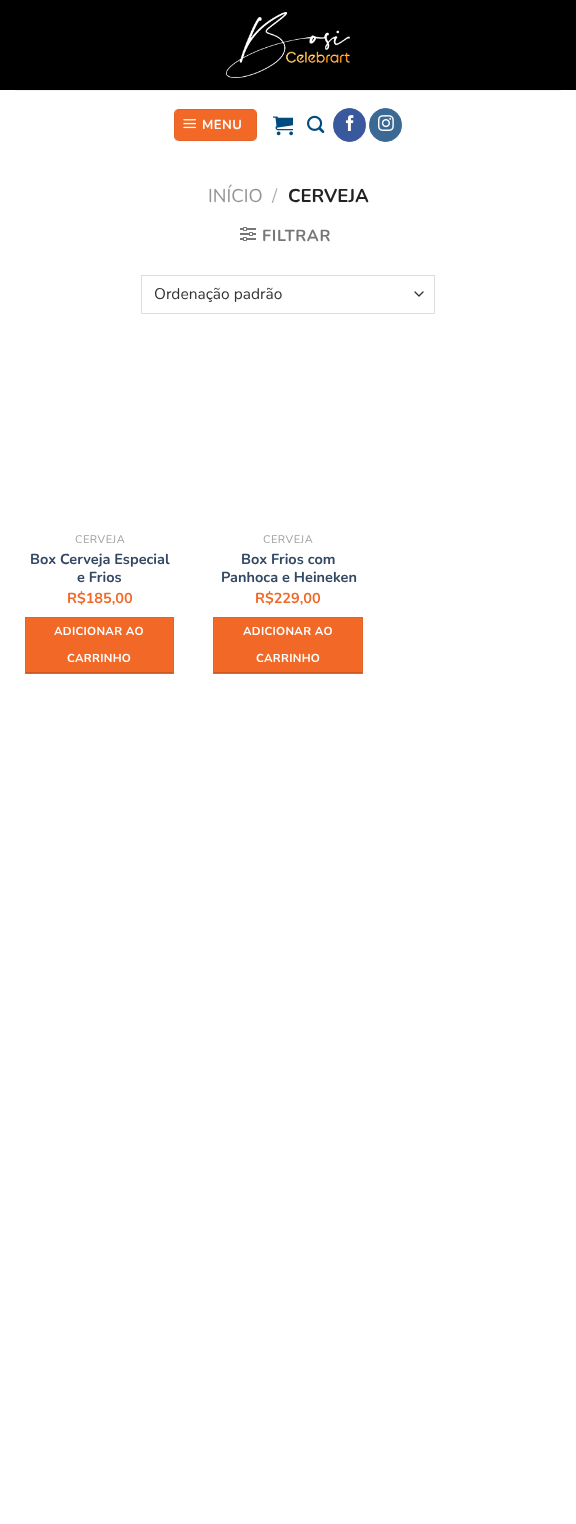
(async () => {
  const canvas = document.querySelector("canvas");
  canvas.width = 576;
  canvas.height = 1524;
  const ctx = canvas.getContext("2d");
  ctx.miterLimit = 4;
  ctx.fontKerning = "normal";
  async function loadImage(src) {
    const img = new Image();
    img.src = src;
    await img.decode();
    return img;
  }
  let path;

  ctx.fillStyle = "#ffffff";
  ctx.fillRect(0, 0, 576, 1524);
  ctx.fillStyle = "#000000";
  ctx.fillRect(0, 0, 576, 90);
  ctx.drawImage(await loadImage("img/1.png"), 226, 12, 124, 66);
  ctx.fillStyle = "#f1f1f1";
  ctx.fillRect(15, 90, 546, 1);
  ctx.fillStyle = "#f16827";
  ctx.beginPath();
  ctx.roundRect(174, 109, 83, 32, 5);
  ctx.fill();
  ctx.strokeStyle = "rgba(0, 0, 0, 0.05)";
  ctx.strokeRect(174.5, 109.5, 82, 31);
  ctx.drawImage(await loadImage("img/2.png"), 183, 119, 13, 10);
  ctx.drawImage(await loadImage("img/3.png"), 273, 116, 20, 20);
  ctx.drawImage(await loadImage("img/4.png"), 307, 115, 18, 18);
  ctx.fillStyle = "#3a589d";
  ctx.beginPath();
  ctx.roundRect(333.5, 108.5, 32, 33, 16);
  ctx.fill();
  ctx.strokeStyle = "#3a589d";
  ctx.stroke();
  ctx.drawImage(await loadImage("img/5.png"), 345, 115, 9, 16);
  ctx.fillStyle = "#3b6994";
  ctx.beginPath();
  ctx.roundRect(369.5, 108.5, 32, 33, 16);
  ctx.fill();
  ctx.strokeStyle = "#3b6994";
  ctx.stroke();
  ctx.drawImage(await loadImage("img/6.png"), 378, 115, 16, 16);
  ctx.drawImage(await loadImage("img/7.png"), 240, 227, 16, 14);
  path = new Path2D("M415 292L419 296L423 292");
  ctx.strokeStyle = "#333333";
  ctx.lineWidth = 1.3;
  ctx.lineCap = "round";
  ctx.lineJoin = "round";
  ctx.stroke(path);
  ctx.strokeStyle = "#dddddd";
  ctx.lineWidth = 1;
  ctx.lineJoin = "miter";
  ctx.strokeRect(141.5, 275.5, 293, 38);
  ctx.fillStyle = "#f16827";
  ctx.fillRect(26, 618, 147, 54);
  ctx.strokeStyle = "#e56325";
  ctx.strokeRect(25.5, 617.5, 148, 56);
  ctx.save();
  ctx.beginPath();
  ctx.rect(26, 618, 147, 55);
  ctx.clip();
  ctx.fillStyle = "#cd5821";
  path = new Path2D("M-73 519H272V772H-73ZM26 617H173V672H26Z");
  ctx.fill(path, "evenodd");
  ctx.restore();
  ctx.fillRect(214, 618, 148, 54);
  ctx.strokeRect(213.5, 617.5, 149, 56);
  ctx.save();
  ctx.beginPath();
  ctx.rect(214, 618, 148, 55);
  ctx.clip();
  ctx.fillStyle = "#cd5821";
  path = new Path2D("M115 519H461V772H115ZM214 617H362V672H214Z");
  ctx.fill(path, "evenodd");
  ctx.restore();
  ctx.letterSpacing = "0.5px";
  ctx.font = "bold 13px Nunito";
  ctx.fillStyle = "#ffffff";
  ctx.fillText("MENU", 202, 129);
  ctx.letterSpacing = "0px";
  ctx.font = "18.5px Nunito";
  ctx.fillStyle = "#949494";
  ctx.fillText("INÍCIO", 208, 202);
  ctx.fillStyle = "#b2b2b2";
  ctx.fillText("/", 272, 202);
  ctx.font = "bold 18.5px Nunito";
  ctx.fillStyle = "#222222";
  ctx.fillText("CERVEJA", 288, 202);
  ctx.letterSpacing = "0.75px";
  ctx.font = "bold 16px Nunito";
  ctx.fillStyle = "#777777";
  ctx.fillText("FILTRAR", 262, 241);
  ctx.letterSpacing = "0px";
  ctx.font = "15.5px Nunito";
  ctx.fillStyle = "#333333";
  ctx.fillText("Ordenação padrão", 154, 299);
  ctx.letterSpacing = "0.5px";
  ctx.font = "11px Nunito";
  ctx.fillStyle = "#a0a0a0";
  ctx.fillText("CERVEJA", 75, 543);
  ctx.letterSpacing = "0px";
  ctx.font = "bold 14.5px Nunito";
  ctx.fillStyle = "#334862";
  ctx.fillText("Box Cerveja Especial", 30, 564);
  ctx.fillText("e Frios", 77, 582);
  ctx.fillStyle = "#f16827";
  ctx.fillText("R$185,00", 67, 603);
  ctx.letterSpacing = "0.3px";
  ctx.font = "bold 11.5px Nunito";
  ctx.fillStyle = "#ffffff";
  ctx.fillText("ADICIONAR AO", 54, 635);
  ctx.fillText("CARRINHO", 67, 662);
  ctx.letterSpacing = "0.5px";
  ctx.font = "11px Nunito";
  ctx.fillStyle = "#a0a0a0";
  ctx.fillText("CERVEJA", 263, 543);
  ctx.letterSpacing = "0px";
  ctx.font = "bold 14.5px Nunito";
  ctx.fillStyle = "#334862";
  ctx.fillText("Box Frios com", 241, 564);
  ctx.fillText("Panhoca e Heineken", 221, 582);
  ctx.fillStyle = "#f16827";
  ctx.fillText("R$229,00", 255, 603);
  ctx.letterSpacing = "0.3px";
  ctx.font = "bold 11.5px Nunito";
  ctx.fillStyle = "#ffffff";
  ctx.fillText("ADICIONAR AO", 243, 635);
  ctx.fillText("CARRINHO", 256, 662);
})();
